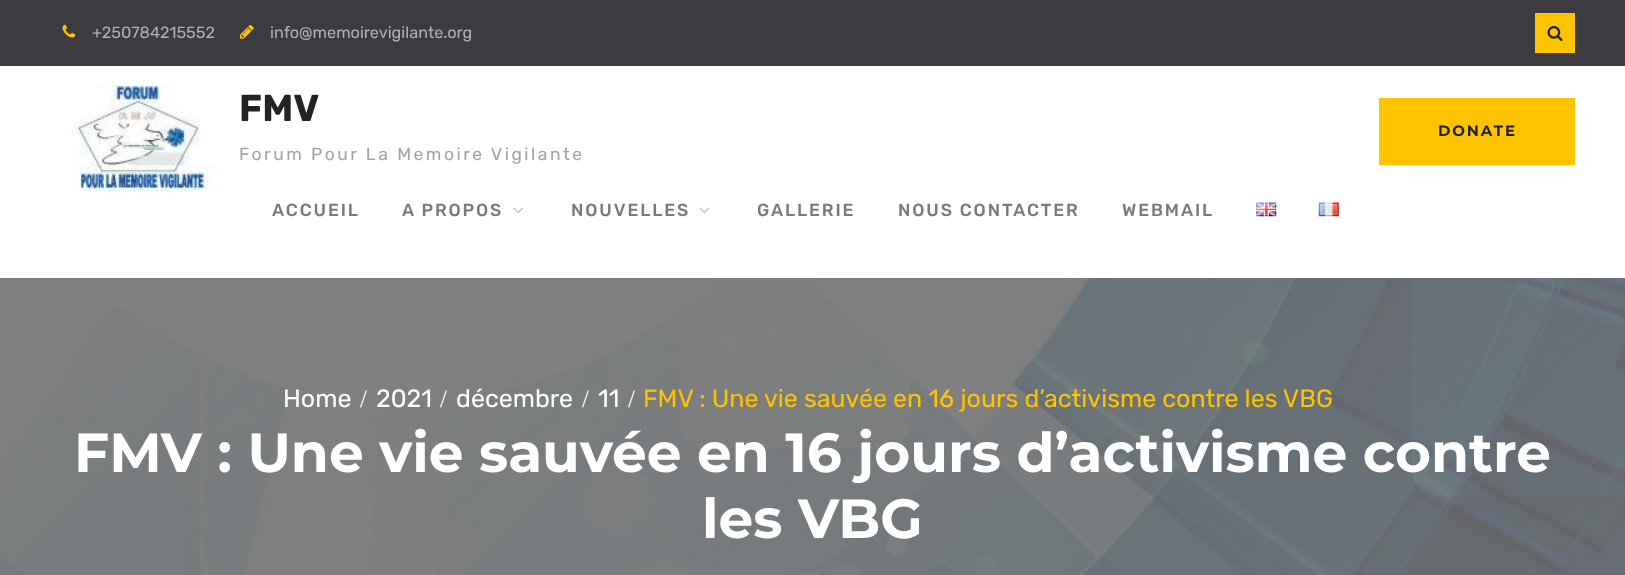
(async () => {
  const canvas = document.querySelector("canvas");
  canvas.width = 1625;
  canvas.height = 575;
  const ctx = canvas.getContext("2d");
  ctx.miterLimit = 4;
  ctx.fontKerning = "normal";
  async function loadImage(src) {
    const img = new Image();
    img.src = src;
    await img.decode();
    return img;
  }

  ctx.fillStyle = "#3d3b40";
  ctx.fillRect(0, 0, 1625, 575);
  ctx.drawImage(await loadImage("img/1.png"), 62, 24, 14, 14);
  ctx.drawImage(await loadImage("img/2.png"), 240, 24, 14, 15);
  ctx.fillStyle = "#ffc300";
  ctx.fillRect(1535, 13, 40, 40);
  ctx.drawImage(await loadImage("img/3.png"), 1547, 26, 16, 16);
  ctx.fillStyle = "#ffffff";
  ctx.fillRect(0, 66, 1625, 212);
  ctx.drawImage(await loadImage("img/4.png"), 70, 85, 150, 107);
  ctx.fillStyle = "#ffc300";
  ctx.fillRect(1379, 98, 196, 67);
  ctx.drawImage(await loadImage("img/5.png"), 513, 207, 10, 7);
  ctx.drawImage(await loadImage("img/6.png"), 699, 207, 11, 7);
  ctx.drawImage(await loadImage("img/7.png"), 1256, 202, 21, 15);
  ctx.drawImage(await loadImage("img/8.png"), 1318, 202, 21, 15);
  ctx.drawImage(await loadImage("img/9.png"), 0, 278, 1625, 297);
  ctx.font = "16.25px Rubik";
  ctx.fillStyle = "#b1b1b1";
  ctx.fillText("+250784215552", 92, 38);
  ctx.fillText("info@memoirevigilante.org", 270, 38);
  ctx.font = "bold 37.5px Rubik";
  ctx.fillStyle = "#232323";
  ctx.fillText("FMV", 239, 121);
  ctx.letterSpacing = "2.5px";
  ctx.font = "17.5px Rubik";
  ctx.fillStyle = "#aba0a0";
  ctx.fillText("Forum Pour La Memoire Vigilante", 239, 160);
  ctx.letterSpacing = "1.9px";
  ctx.font = "bold 15px Montserrat";
  ctx.fillStyle = "#232323";
  ctx.fillText("DONATE", 1438, 136);
  ctx.font = "500 17.5px Rubik";
  ctx.fillStyle = "#7b7979";
  for (const [text, x, y] of [
    ["ACCUEIL", 272, 216],
    ["A PROPOS", 402, 216],
    ["NOUVELLES", 571, 216],
    ["GALLERIE", 757, 216],
    ["NOUS CONTACTER", 898, 216],
    ["WEBMAIL", 1122, 216],
  ]) {
    ctx.fillText(text, x, y);
  }
  ctx.letterSpacing = "0px";
  ctx.font = "25px Rubik";
  ctx.fillStyle = "#ffffff";
  ctx.fillText("Home", 283, 407);
  ctx.font = "25px Liberation Serif";
  ctx.fillText("/", 360, 407);
  ctx.font = "25px Rubik";
  ctx.fillText("2021", 376, 407);
  ctx.font = "25px Liberation Serif";
  ctx.fillText("/", 440, 407);
  ctx.font = "25px Rubik";
  ctx.fillText("décembre", 456, 407);
  ctx.font = "25px Liberation Serif";
  ctx.fillText("/", 582, 407);
  ctx.font = "25px Rubik";
  ctx.fillText("11", 598, 407);
  ctx.font = "25px Liberation Serif";
  ctx.fillText("/", 628, 407);
  ctx.font = "25px Rubik";
  ctx.fillStyle = "#ffc300";
  ctx.fillText("FMV : Une vie sauvée en 16 jours d’activisme contre les VBG", 643, 407);
  ctx.font = "bold 55px Montserrat";
  ctx.fillStyle = "#ffffff";
  ctx.fillText("FMV : Une vie sauvée en 16 jours d’activisme contre", 74, 472);
  ctx.fillText("les VBG", 702, 538);
})();
